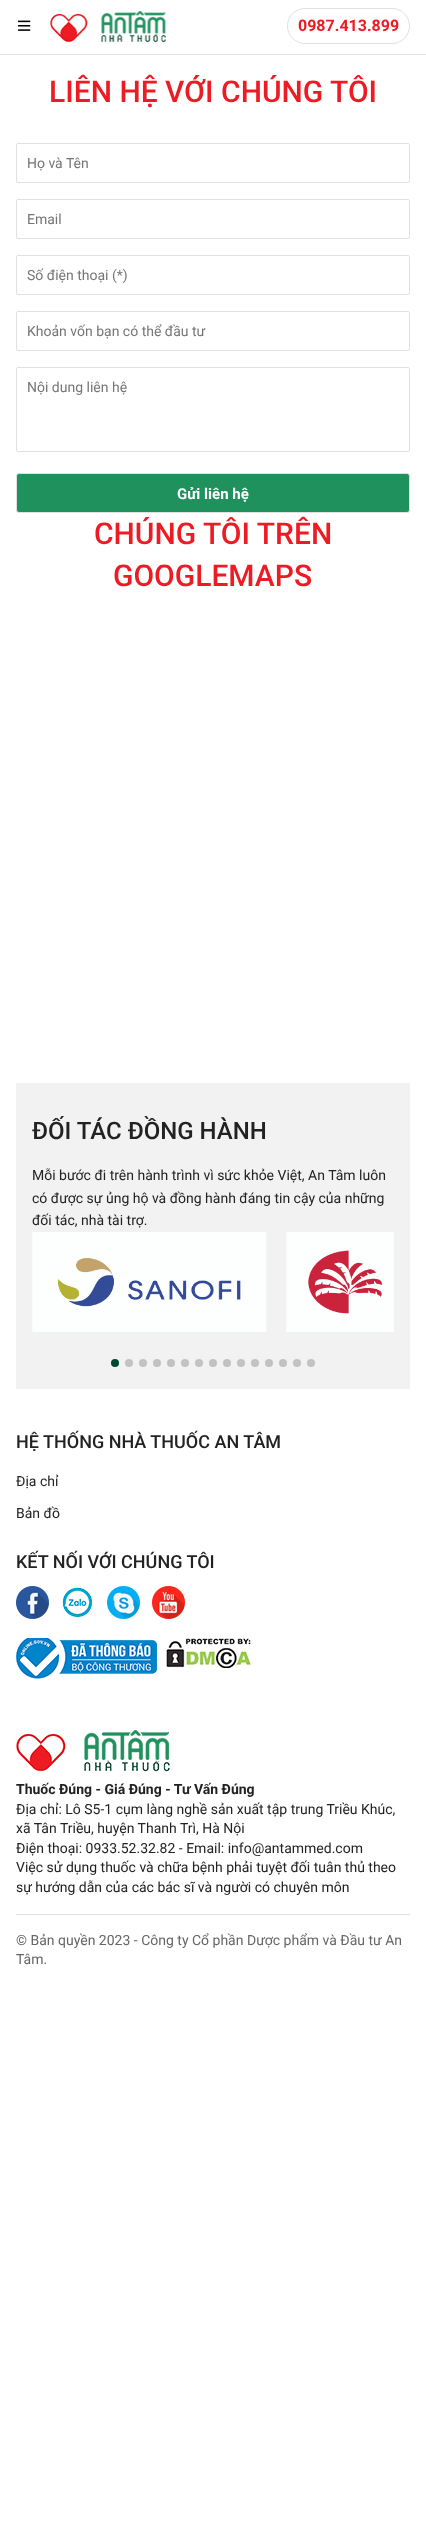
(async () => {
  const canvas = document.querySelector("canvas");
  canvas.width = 426;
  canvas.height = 2540;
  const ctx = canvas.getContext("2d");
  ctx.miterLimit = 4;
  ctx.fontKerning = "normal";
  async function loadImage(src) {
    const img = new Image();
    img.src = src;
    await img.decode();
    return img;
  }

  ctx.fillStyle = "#ffffff";
  ctx.fillRect(0, 0, 426, 2540);
  ctx.drawImage(await loadImage("img/1.png"), 18, 20, 13, 11);
  ctx.fillStyle = "#e0e0e0";
  ctx.fillRect(0, 54, 426, 1);
  ctx.drawImage(await loadImage("img/2.png"), 50, 11, 116, 32);
  ctx.beginPath();
  ctx.roundRect(287.5, 8.5, 122, 35, 17.5);
  ctx.strokeStyle = "#e0e0e0";
  ctx.stroke();
  ctx.beginPath();
  ctx.roundRect(16.5, 143.5, 393, 39, 1.5);
  ctx.stroke();
  ctx.beginPath();
  ctx.roundRect(16.5, 199.5, 393, 39, 1.5);
  ctx.stroke();
  ctx.beginPath();
  ctx.roundRect(16.5, 255.5, 393, 39, 1.5);
  ctx.stroke();
  ctx.beginPath();
  ctx.roundRect(16.5, 311.5, 393, 39, 1.5);
  ctx.stroke();
  ctx.beginPath();
  ctx.roundRect(16.5, 367.5, 393, 84, 1.5);
  ctx.stroke();
  ctx.fillStyle = "#1f915d";
  ctx.beginPath();
  ctx.roundRect(16.5, 473.5, 393, 39, 2.5);
  ctx.fill();
  ctx.stroke();
  ctx.fillStyle = "#f2f2f2";
  ctx.fillRect(16, 1083, 394, 306);
  ctx.drawImage(await loadImage("img/3.png"), 32, 1232, 235, 100);
  ctx.drawImage(await loadImage("img/4.png"), 286, 1232, 108, 100);
  ctx.fillStyle = "#004830";
  ctx.beginPath();
  ctx.arc(115, 1363, 4, 0, Math.PI * 2);
  ctx.fill();
  ctx.fillStyle = "#c2c2c2";
  ctx.beginPath();
  ctx.arc(129, 1363, 4, 0, Math.PI * 2);
  ctx.fill();
  ctx.beginPath();
  ctx.arc(143, 1363, 4, 0, Math.PI * 2);
  ctx.fill();
  ctx.beginPath();
  ctx.arc(157, 1363, 4, 0, Math.PI * 2);
  ctx.fill();
  ctx.beginPath();
  ctx.arc(171, 1363, 4, 0, Math.PI * 2);
  ctx.fill();
  ctx.beginPath();
  ctx.arc(185, 1363, 4, 0, Math.PI * 2);
  ctx.fill();
  ctx.beginPath();
  ctx.arc(199, 1363, 4, 0, Math.PI * 2);
  ctx.fill();
  ctx.beginPath();
  ctx.arc(213, 1363, 4, 0, Math.PI * 2);
  ctx.fill();
  ctx.beginPath();
  ctx.arc(227, 1363, 4, 0, Math.PI * 2);
  ctx.fill();
  ctx.beginPath();
  ctx.arc(241, 1363, 4, 0, Math.PI * 2);
  ctx.fill();
  ctx.beginPath();
  ctx.arc(255, 1363, 4, 0, Math.PI * 2);
  ctx.fill();
  ctx.beginPath();
  ctx.arc(269, 1363, 4, 0, Math.PI * 2);
  ctx.fill();
  ctx.beginPath();
  ctx.arc(283, 1363, 4, 0, Math.PI * 2);
  ctx.fill();
  ctx.beginPath();
  ctx.arc(297, 1363, 4, 0, Math.PI * 2);
  ctx.fill();
  ctx.beginPath();
  ctx.arc(311, 1363, 4, 0, Math.PI * 2);
  ctx.fill();
  ctx.drawImage(await loadImage("img/5.png"), 16, 1586, 33, 33);
  ctx.drawImage(await loadImage("img/6.png"), 62, 1587, 31, 31);
  ctx.drawImage(await loadImage("img/7.png"), 107, 1586, 33, 33);
  ctx.drawImage(await loadImage("img/8.png"), 152, 1586, 33, 33);
  ctx.drawImage(await loadImage("img/9.png"), 16, 1638, 141, 41);
  ctx.drawImage(await loadImage("img/10.png"), 166, 1638, 85, 30);
  ctx.drawImage(await loadImage("img/11.png"), 16, 1730, 154, 42);
  ctx.fillStyle = "#e0e0e0";
  ctx.fillRect(16, 1914, 394, 1);
  ctx.font = "bold 16px Roboto";
  ctx.fillStyle = "#ed1b24";
  ctx.fillText("0987.413.899", 298, 31);
  ctx.font = "500 30px Roboto";
  ctx.fillText("LIÊN HỆ VỚI CHÚNG TÔI", 49, 102);
  ctx.font = "14px Roboto";
  ctx.fillStyle = "#757575";
  for (const [text, x, y] of [
    ["Họ và Tên", 27, 168],
    ["Email", 27, 224],
    ["Số điện thoại (*)", 27, 280],
    ["Khoản vốn bạn có thể đầu tư", 27, 336],
    ["Nội dung liên hệ", 27, 392],
  ]) {
    ctx.fillText(text, x, y);
  }
  ctx.font = "bold 15px Roboto";
  ctx.fillStyle = "#ffffff";
  ctx.fillText("Gửi liên hệ", 177, 499);
  ctx.font = "500 30px Roboto";
  ctx.fillStyle = "#ed1b24";
  ctx.fillText("CHÚNG TÔI TRÊN", 94, 544);
  ctx.fillText("GOOGLEMAPS", 113, 586);
  ctx.font = "500 24px Roboto";
  ctx.fillStyle = "#222222";
  ctx.fillText("ĐỐI TÁC ĐỒNG HÀNH", 32, 1139);
  ctx.font = "14px Roboto";
  for (const [text, x, y] of [
    ["Mỗi bước đi trên hành trình vì sức khỏe Việt, An Tâm luôn", 32, 1180],
    ["có được sự ủng hộ và đồng hành đáng tin cậy của những", 32, 1203],
    ["đối tác, nhà tài trợ.", 32, 1225],
  ]) {
    ctx.fillText(text, x, y);
  }
  ctx.font = "500 18px Roboto";
  ctx.fillText("HỆ THỐNG NHÀ THUỐC AN TÂM", 16, 1448);
  ctx.font = "14px Roboto";
  ctx.fillText("Địa chỉ", 16, 1486);
  ctx.fillText("Bản đồ", 16, 1518);
  ctx.font = "500 18px Roboto";
  ctx.fillText("KẾT NỐI VỚI CHÚNG TÔI", 16, 1568);
  ctx.font = "bold 14px Roboto";
  ctx.fillText("Thuốc Đúng - Giá Đúng - Tư Vấn Đúng", 16, 1794);
  ctx.font = "14px Roboto";
  for (const [text, x, y] of [
    ["Địa chỉ: Lô S5-1 cụm làng nghề sản xuất tập trung Triều Khúc,", 16, 1814],
    ["xã Tân Triều, huyện Thanh Trì, Hà Nội", 16, 1833],
    ["Điện thoại: 0933.52.32.82 - Email: info@antammed.com", 16, 1853],
    ["Việc sử dụng thuốc và chữa bệnh phải tuyệt đối tuân thủ theo", 16, 1872],
    ["sự hướng dẫn của các bác sĩ và người có chuyên môn", 16, 1892],
  ]) {
    ctx.fillText(text, x, y);
  }
  ctx.fillStyle = "#666666";
  ctx.fillText("© Bản quyền 2023 - Công ty Cổ phần Dược phẩm và Đầu tư An", 16, 1945);
  ctx.fillText("Tâm.", 16, 1964);
})();
